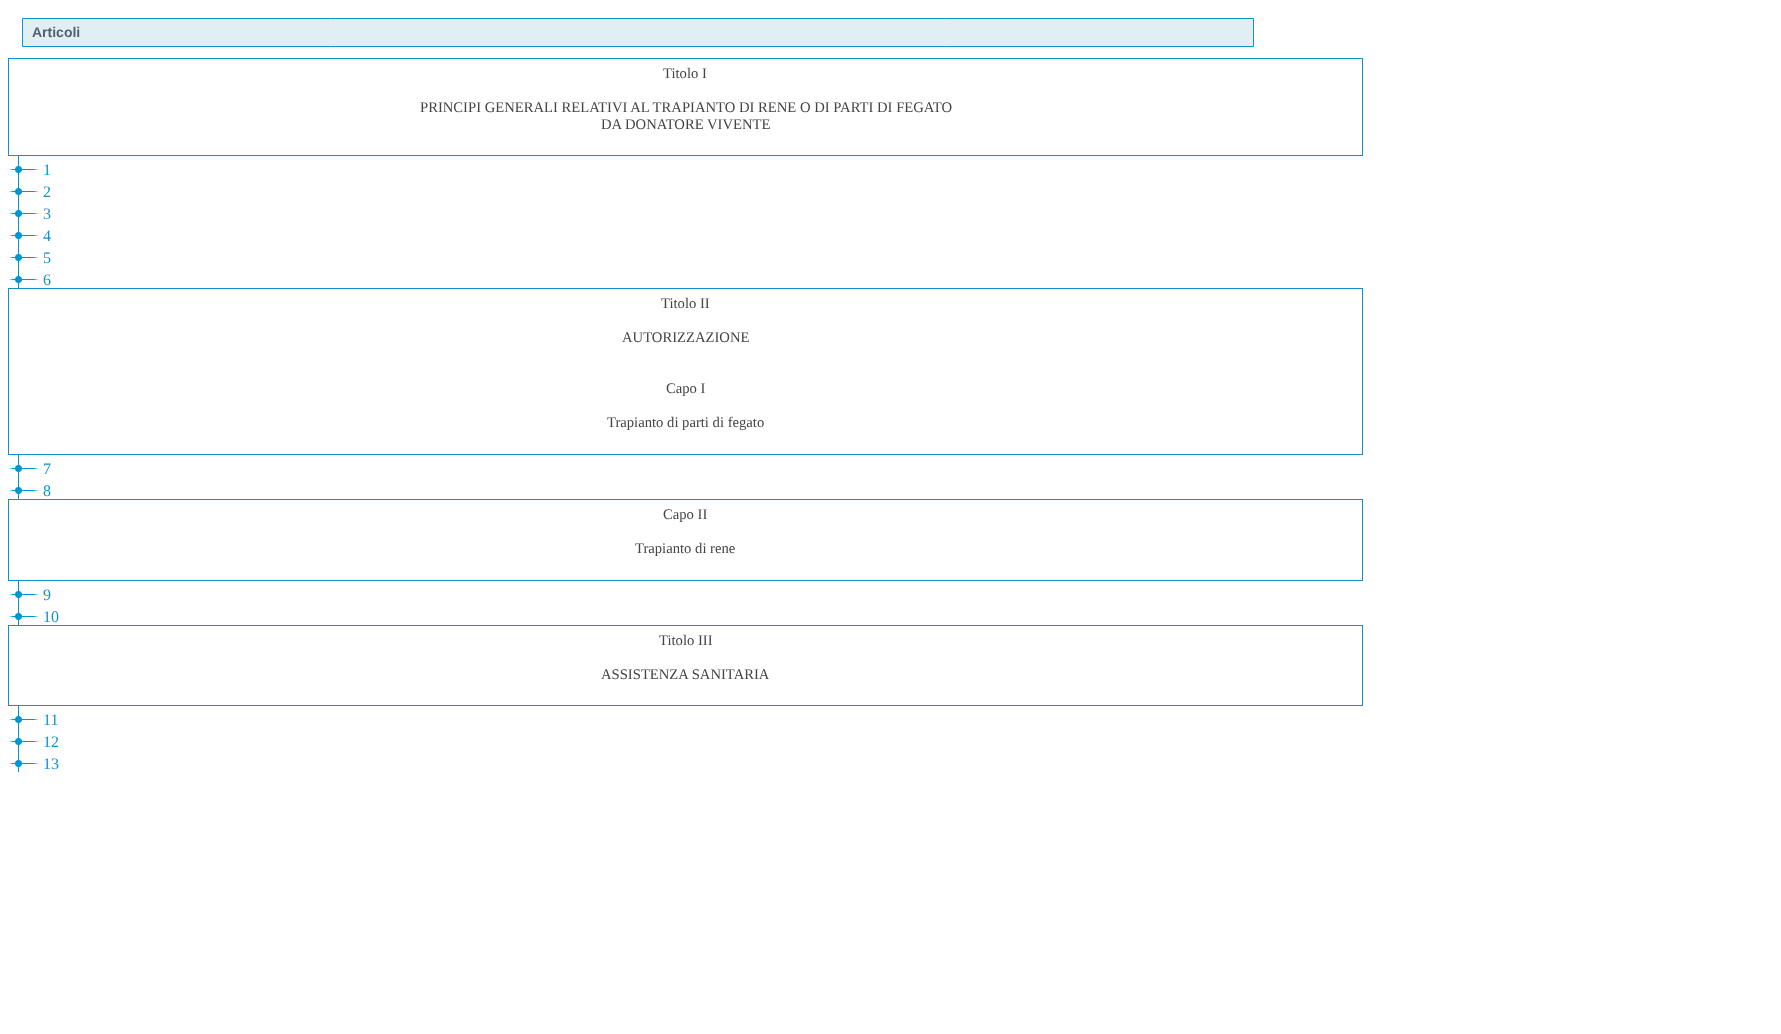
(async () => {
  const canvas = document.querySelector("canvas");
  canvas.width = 1781;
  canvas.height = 1034;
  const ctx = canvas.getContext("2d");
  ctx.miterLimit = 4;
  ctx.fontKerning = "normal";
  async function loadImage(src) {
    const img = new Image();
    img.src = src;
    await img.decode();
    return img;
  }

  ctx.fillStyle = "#ffffff";
  ctx.fillRect(0, 0, 1781, 1034);
  ctx.fillStyle = "#e1eff4";
  ctx.beginPath();
  ctx.rect(22.5, 18.5, 1231, 28);
  ctx.fill();
  ctx.strokeStyle = "#1091ca";
  ctx.stroke();
  ctx.strokeRect(8.5, 58.5, 1354, 97);
  ctx.drawImage(await loadImage("img/1.png"), 9, 156, 30, 22);
  ctx.drawImage(await loadImage("img/1.png"), 9, 178, 30, 22);
  ctx.drawImage(await loadImage("img/1.png"), 9, 200, 30, 22);
  ctx.drawImage(await loadImage("img/1.png"), 9, 222, 30, 22);
  ctx.drawImage(await loadImage("img/1.png"), 9, 244, 30, 22);
  ctx.drawImage(await loadImage("img/1.png"), 9, 266, 30, 22);
  ctx.strokeRect(8.5, 288.5, 1354, 166);
  ctx.drawImage(await loadImage("img/1.png"), 9, 455, 30, 22);
  ctx.drawImage(await loadImage("img/1.png"), 9, 477, 30, 22);
  ctx.strokeRect(8.5, 499.5, 1354, 81);
  ctx.drawImage(await loadImage("img/1.png"), 9, 581, 30, 22);
  ctx.drawImage(await loadImage("img/1.png"), 9, 603, 30, 22);
  ctx.strokeRect(8.5, 625.5, 1354, 80);
  ctx.drawImage(await loadImage("img/1.png"), 9, 706, 30, 22);
  ctx.drawImage(await loadImage("img/1.png"), 9, 728, 30, 22);
  ctx.drawImage(await loadImage("img/1.png"), 9, 750, 30, 22);
  ctx.font = "bold 14px Liberation Sans";
  ctx.fillStyle = "#536074";
  ctx.fillText("Articoli", 32, 37);
  ctx.font = "14.65px Liberation Serif";
  ctx.fillStyle = "#444444";
  for (const [text, x, y] of [
    ["Titolo I", 663, 78],
    ["PRINCIPI GENERALI RELATIVI AL TRAPIANTO DI RENE O DI PARTI DI FEGATO", 420, 112],
    ["DA DONATORE VIVENTE", 601, 129],
  ]) {
    ctx.fillText(text, x, y);
  }
  ctx.font = "16px Liberation Serif";
  ctx.fillStyle = "#1091ca";
  for (const [text, x, y] of [
    ["1", 43, 175],
    ["2", 43, 197],
    ["3", 43, 219],
    ["4", 43, 241],
    ["5", 43, 263],
    ["6", 43, 285],
  ]) {
    ctx.fillText(text, x, y);
  }
  ctx.font = "14.65px Liberation Serif";
  ctx.fillStyle = "#444444";
  for (const [text, x, y] of [
    ["Titolo II", 661, 308],
    ["AUTORIZZAZIONE", 622, 342],
    ["Capo I", 666, 393],
    ["Trapianto di parti di fegato", 607, 427],
  ]) {
    ctx.fillText(text, x, y);
  }
  ctx.font = "16px Liberation Serif";
  ctx.fillStyle = "#1091ca";
  ctx.fillText("7", 43, 474);
  ctx.fillText("8", 43, 496);
  ctx.font = "14.65px Liberation Serif";
  ctx.fillStyle = "#444444";
  ctx.fillText("Capo II", 663, 519);
  ctx.fillText("Trapianto di rene", 635, 553);
  ctx.font = "16px Liberation Serif";
  ctx.fillStyle = "#1091ca";
  ctx.fillText("9", 43, 600);
  ctx.fillText("10", 43, 622);
  ctx.font = "14.65px Liberation Serif";
  ctx.fillStyle = "#444444";
  ctx.fillText("Titolo III", 659, 645);
  ctx.fillText("ASSISTENZA SANITARIA", 601, 679);
  ctx.font = "16px Liberation Serif";
  ctx.fillStyle = "#1091ca";
  for (const [text, x, y] of [
    ["11", 43, 725],
    ["12", 43, 747],
    ["13", 43, 769],
  ]) {
    ctx.fillText(text, x, y);
  }
})();
